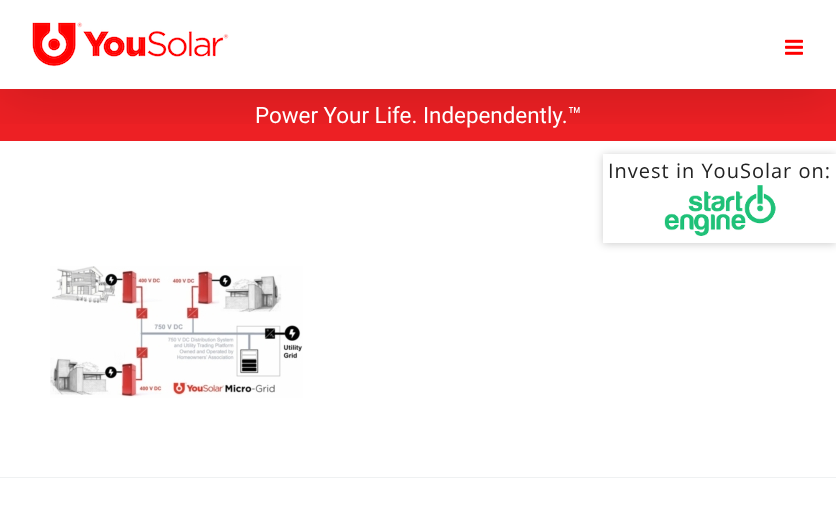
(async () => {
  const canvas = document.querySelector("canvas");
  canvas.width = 836;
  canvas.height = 512;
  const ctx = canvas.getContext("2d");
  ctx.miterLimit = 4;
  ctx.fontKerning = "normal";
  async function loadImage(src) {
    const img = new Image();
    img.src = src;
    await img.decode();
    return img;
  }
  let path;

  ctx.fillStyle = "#ffffff";
  ctx.fillRect(0, 0, 836, 512);
  ctx.fillStyle = "#ed2024";
  ctx.fillRect(0, 89, 836, 52);
  ctx.save();
  ctx.beginPath();
  ctx.rect(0, 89, 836, 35);
  ctx.clip();
  ctx.fillStyle = "rgba(0, 0, 0, 0.14)";
  ctx.filter = "blur(25px)";
  ctx.beginPath();
  ctx.rect(2, 12, 832, 85);
  ctx.fill();
  ctx.filter = "none";
  ctx.restore();
  ctx.drawImage(await loadImage("img/1.png"), 32, 22, 197, 45);
  ctx.drawImage(await loadImage("img/2.png"), 785, 39, 18, 16);
  ctx.drawImage(await loadImage("img/3.png"), 50, 266, 253, 132);
  ctx.fillStyle = "#eff1f2";
  ctx.fillRect(0, 477, 836, 1);
  ctx.save();
  path = new Path2D("M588 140H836V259H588ZM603 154H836V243H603Z");
  ctx.clip(path, "evenodd");
  ctx.fillStyle = "rgba(0, 0, 0, 0.2)";
  ctx.filter = "blur(4.5px)";
  ctx.beginPath();
  ctx.rect(603, 155, 233, 89);
  ctx.fill();
  ctx.filter = "none";
  ctx.restore();
  ctx.drawImage(await loadImage("img/4.png"), 664, 185, 112, 51);
  ctx.font = "22.4px Roboto";
  ctx.fillStyle = "#ffffff";
  ctx.fillText("Power Your Life. Independently.™", 255, 123);
  ctx.letterSpacing = "1px";
  ctx.font = "20px Open Sans";
  ctx.fillStyle = "#222222";
  ctx.fillText("Invest in YouSolar on:", 608, 178);
})();
